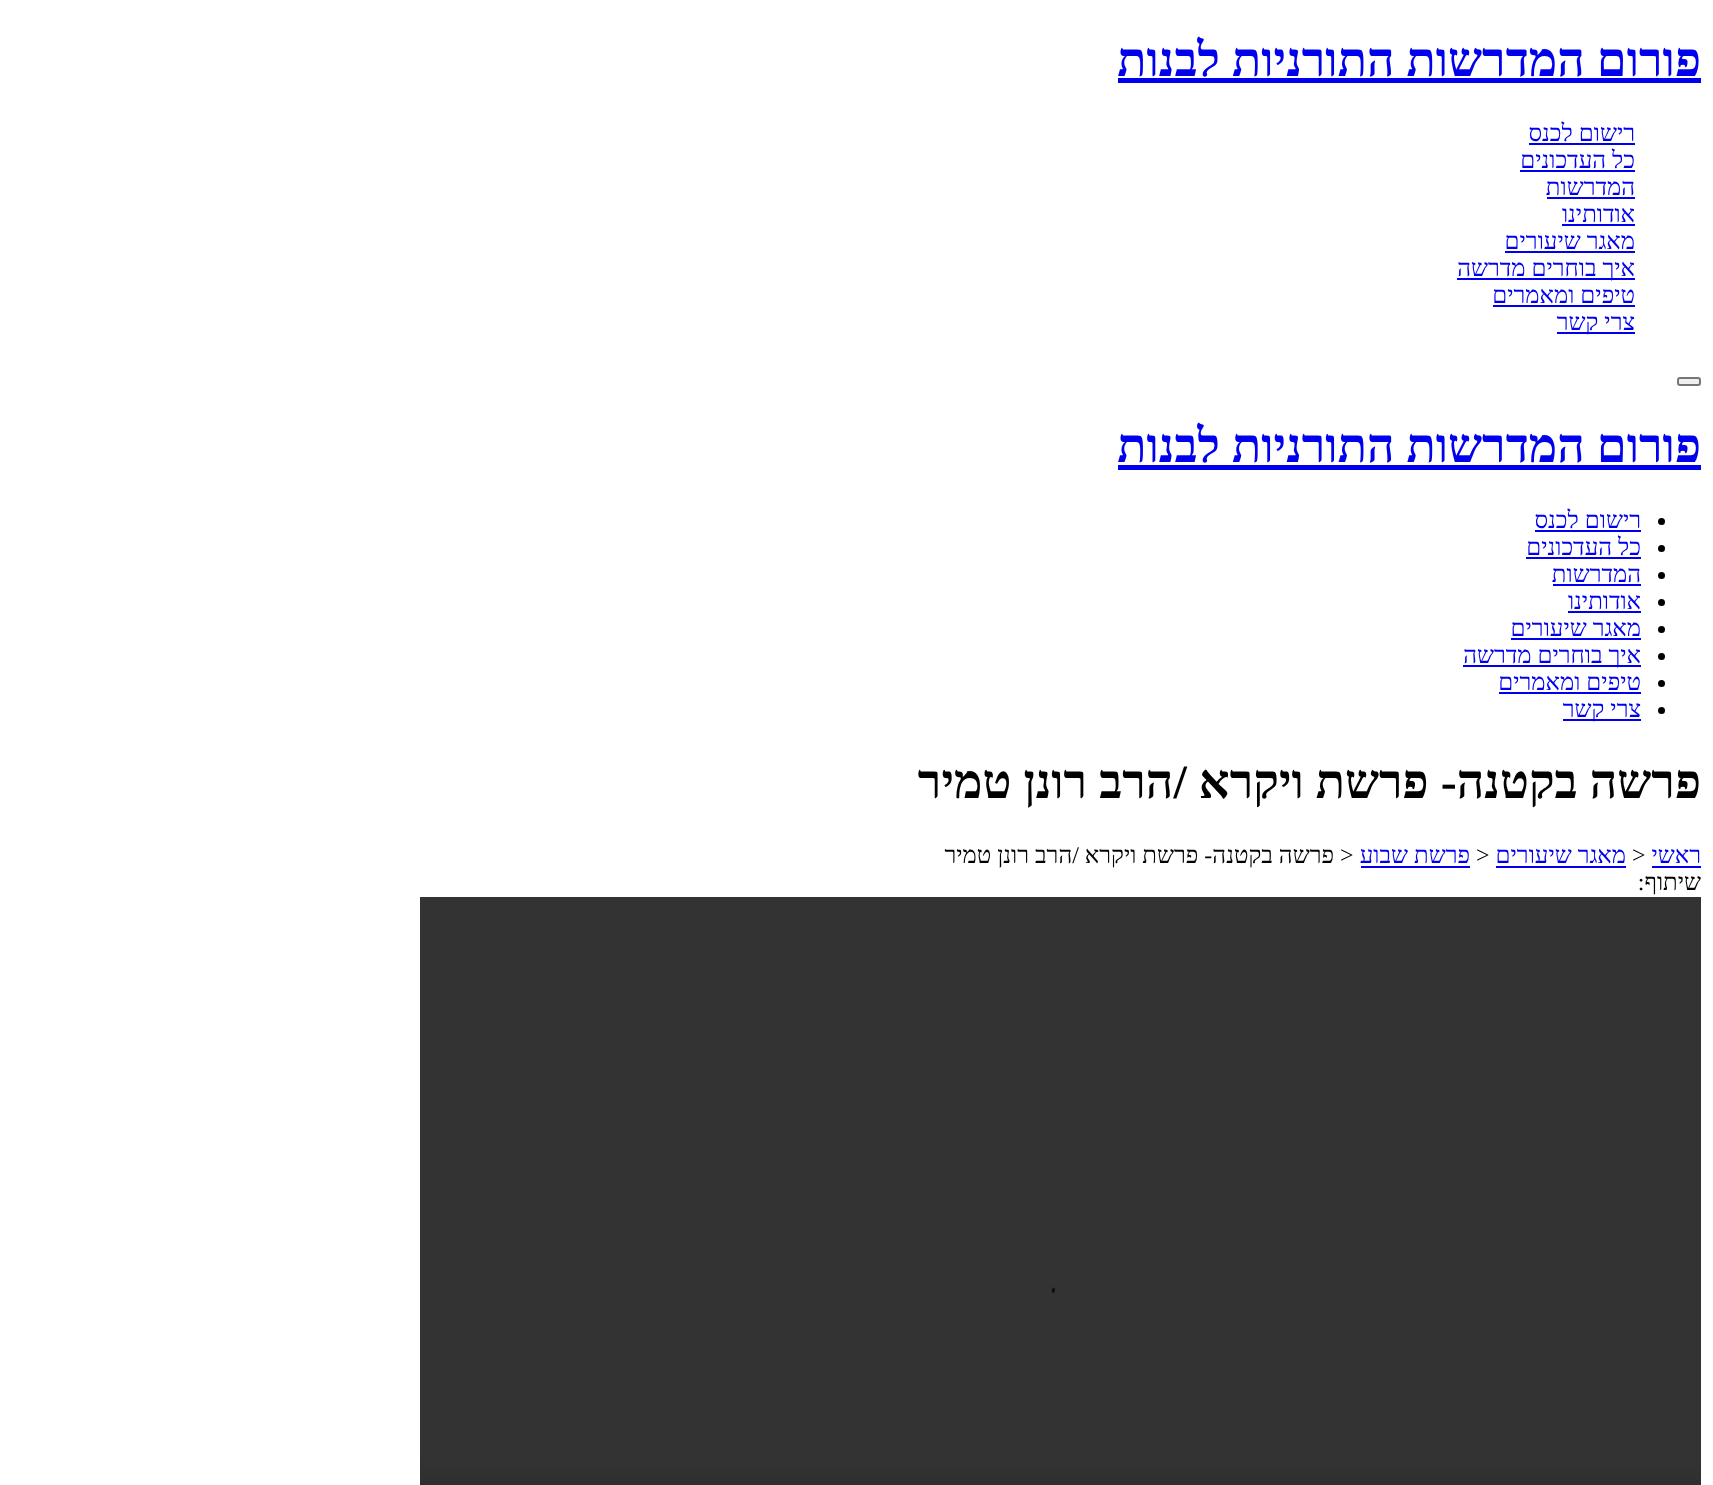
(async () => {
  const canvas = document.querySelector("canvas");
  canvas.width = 1713;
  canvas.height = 1485;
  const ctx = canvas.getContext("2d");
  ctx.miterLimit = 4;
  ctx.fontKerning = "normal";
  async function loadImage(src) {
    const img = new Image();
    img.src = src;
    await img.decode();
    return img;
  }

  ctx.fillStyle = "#ffffff";
  ctx.fillRect(0, 0, 1713, 1485);
  for (const [x, y, w, h, color] of [
    [1118, 78, 583, 5, "#0000ee"],
    [1529, 143, 106, 2, "#0000ee"],
    [1520, 170, 115, 2, "#0000ee"],
    [1547, 197, 88, 2, "#0000ee"],
    [1562, 224, 73, 2, "#0000ee"],
    [1505, 251, 130, 2, "#0000ee"],
    [1457, 278, 178, 2, "#0000ee"],
    [1493, 305, 142, 2, "#0000ee"],
    [1557, 332, 78, 2, "#0000ee"],
  ]) {
    ctx.fillStyle = color;
    ctx.fillRect(x, y, w, h);
  }
  ctx.fillStyle = "#efefef";
  ctx.beginPath();
  ctx.roundRect(1678, 378, 22, 7, 2);
  ctx.fill();
  ctx.strokeStyle = "#767676";
  ctx.lineWidth = 2;
  ctx.stroke();
  ctx.fillStyle = "#0000ee";
  ctx.fillRect(1118, 465, 583, 5);
  ctx.fillStyle = "#000000";
  ctx.beginPath();
  ctx.arc(1661.5, 521.5, 3.5, 0, Math.PI * 2);
  ctx.fill();
  ctx.fillStyle = "#0000ee";
  ctx.fillRect(1535, 530, 106, 2);
  ctx.fillStyle = "#000000";
  ctx.beginPath();
  ctx.arc(1661.5, 548.5, 3.5, 0, Math.PI * 2);
  ctx.fill();
  ctx.fillStyle = "#0000ee";
  ctx.fillRect(1526, 557, 115, 2);
  ctx.fillStyle = "#000000";
  ctx.beginPath();
  ctx.arc(1661.5, 575.5, 3.5, 0, Math.PI * 2);
  ctx.fill();
  ctx.fillStyle = "#0000ee";
  ctx.fillRect(1553, 584, 88, 2);
  ctx.fillStyle = "#000000";
  ctx.beginPath();
  ctx.arc(1661.5, 602.5, 3.5, 0, Math.PI * 2);
  ctx.fill();
  ctx.fillStyle = "#0000ee";
  ctx.fillRect(1568, 611, 73, 2);
  ctx.fillStyle = "#000000";
  ctx.beginPath();
  ctx.arc(1661.5, 629.5, 3.5, 0, Math.PI * 2);
  ctx.fill();
  ctx.fillStyle = "#0000ee";
  ctx.fillRect(1511, 638, 130, 2);
  ctx.fillStyle = "#000000";
  ctx.beginPath();
  ctx.arc(1661.5, 656.5, 3.5, 0, Math.PI * 2);
  ctx.fill();
  ctx.fillStyle = "#0000ee";
  ctx.fillRect(1463, 665, 178, 2);
  ctx.fillStyle = "#000000";
  ctx.beginPath();
  ctx.arc(1661.5, 683.5, 3.5, 0, Math.PI * 2);
  ctx.fill();
  ctx.fillStyle = "#0000ee";
  ctx.fillRect(1499, 692, 142, 2);
  ctx.fillStyle = "#000000";
  ctx.beginPath();
  ctx.arc(1661.5, 710.5, 3.5, 0, Math.PI * 2);
  ctx.fill();
  for (const [x, y, w, h, color] of [
    [1563, 719, 78, 2, "#0000ee"],
    [1652, 866, 49, 2, "#0000ee"],
    [1496, 866, 130, 2, "#0000ee"],
    [1361, 866, 109, 2, "#0000ee"],
  ]) {
    ctx.fillStyle = color;
    ctx.fillRect(x, y, w, h);
  }
  ctx.drawImage(await loadImage("img/1.png"), 420, 897, 1281, 588);
  ctx.direction = "rtl";
  ctx.font = "bold 48px Liberation Serif";
  ctx.fillText("פורום המדרשות התורניות לבנות", 1701, 76);
  ctx.font = "24px Liberation Serif";
  for (const [text, x, y] of [
    ["רישום לכנס", 1635, 141],
    ["כל העדכונים", 1635, 168],
    ["המדרשות", 1635, 195],
    ["אודותינו", 1635, 222],
    ["מאגר שיעורים", 1635, 249],
    ["איך בוחרים מדרשה", 1635, 276],
    ["טיפים ומאמרים", 1635, 303],
    ["צרי קשר", 1635, 330],
  ]) {
    ctx.fillText(text, x, y);
  }
  ctx.font = "bold 48px Liberation Serif";
  ctx.fillText("פורום המדרשות התורניות לבנות", 1701, 462);
  ctx.font = "24px Liberation Serif";
  for (const [text, x, y] of [
    ["רישום לכנס", 1641, 528],
    ["כל העדכונים", 1641, 555],
    ["המדרשות", 1641, 582],
    ["אודותינו", 1641, 609],
    ["מאגר שיעורים", 1641, 636],
    ["איך בוחרים מדרשה", 1641, 663],
    ["טיפים ומאמרים", 1641, 690],
    ["צרי קשר", 1641, 717],
  ]) {
    ctx.fillText(text, x, y);
  }
  ctx.font = "bold 48px Liberation Serif";
  ctx.fillStyle = "#000000";
  ctx.fillText("פרשה בקטנה- פרשת ויקרא /הרב רונן טמיר", 1701, 798);
  ctx.font = "24px Liberation Serif";
  ctx.fillStyle = "#0000ee";
  ctx.fillText("ראשי", 1701, 863);
  ctx.direction = "ltr";
  ctx.fillStyle = "#000000";
  ctx.fillText(">", 1632, 863);
  ctx.direction = "rtl";
  ctx.fillStyle = "#0000ee";
  ctx.fillText("מאגר שיעורים", 1626, 863);
  ctx.direction = "ltr";
  ctx.fillStyle = "#000000";
  ctx.fillText(">", 1476, 863);
  ctx.direction = "rtl";
  ctx.fillStyle = "#0000ee";
  ctx.fillText("פרשת שבוע", 1470, 863);
  ctx.direction = "ltr";
  ctx.fillStyle = "#000000";
  ctx.fillText(">", 1340, 863);
  ctx.direction = "rtl";
  ctx.fillText("פרשה בקטנה- פרשת ויקרא /הרב רונן טמיר", 1334, 863);
  ctx.fillText("שיתוף:", 1701, 890);
})();
